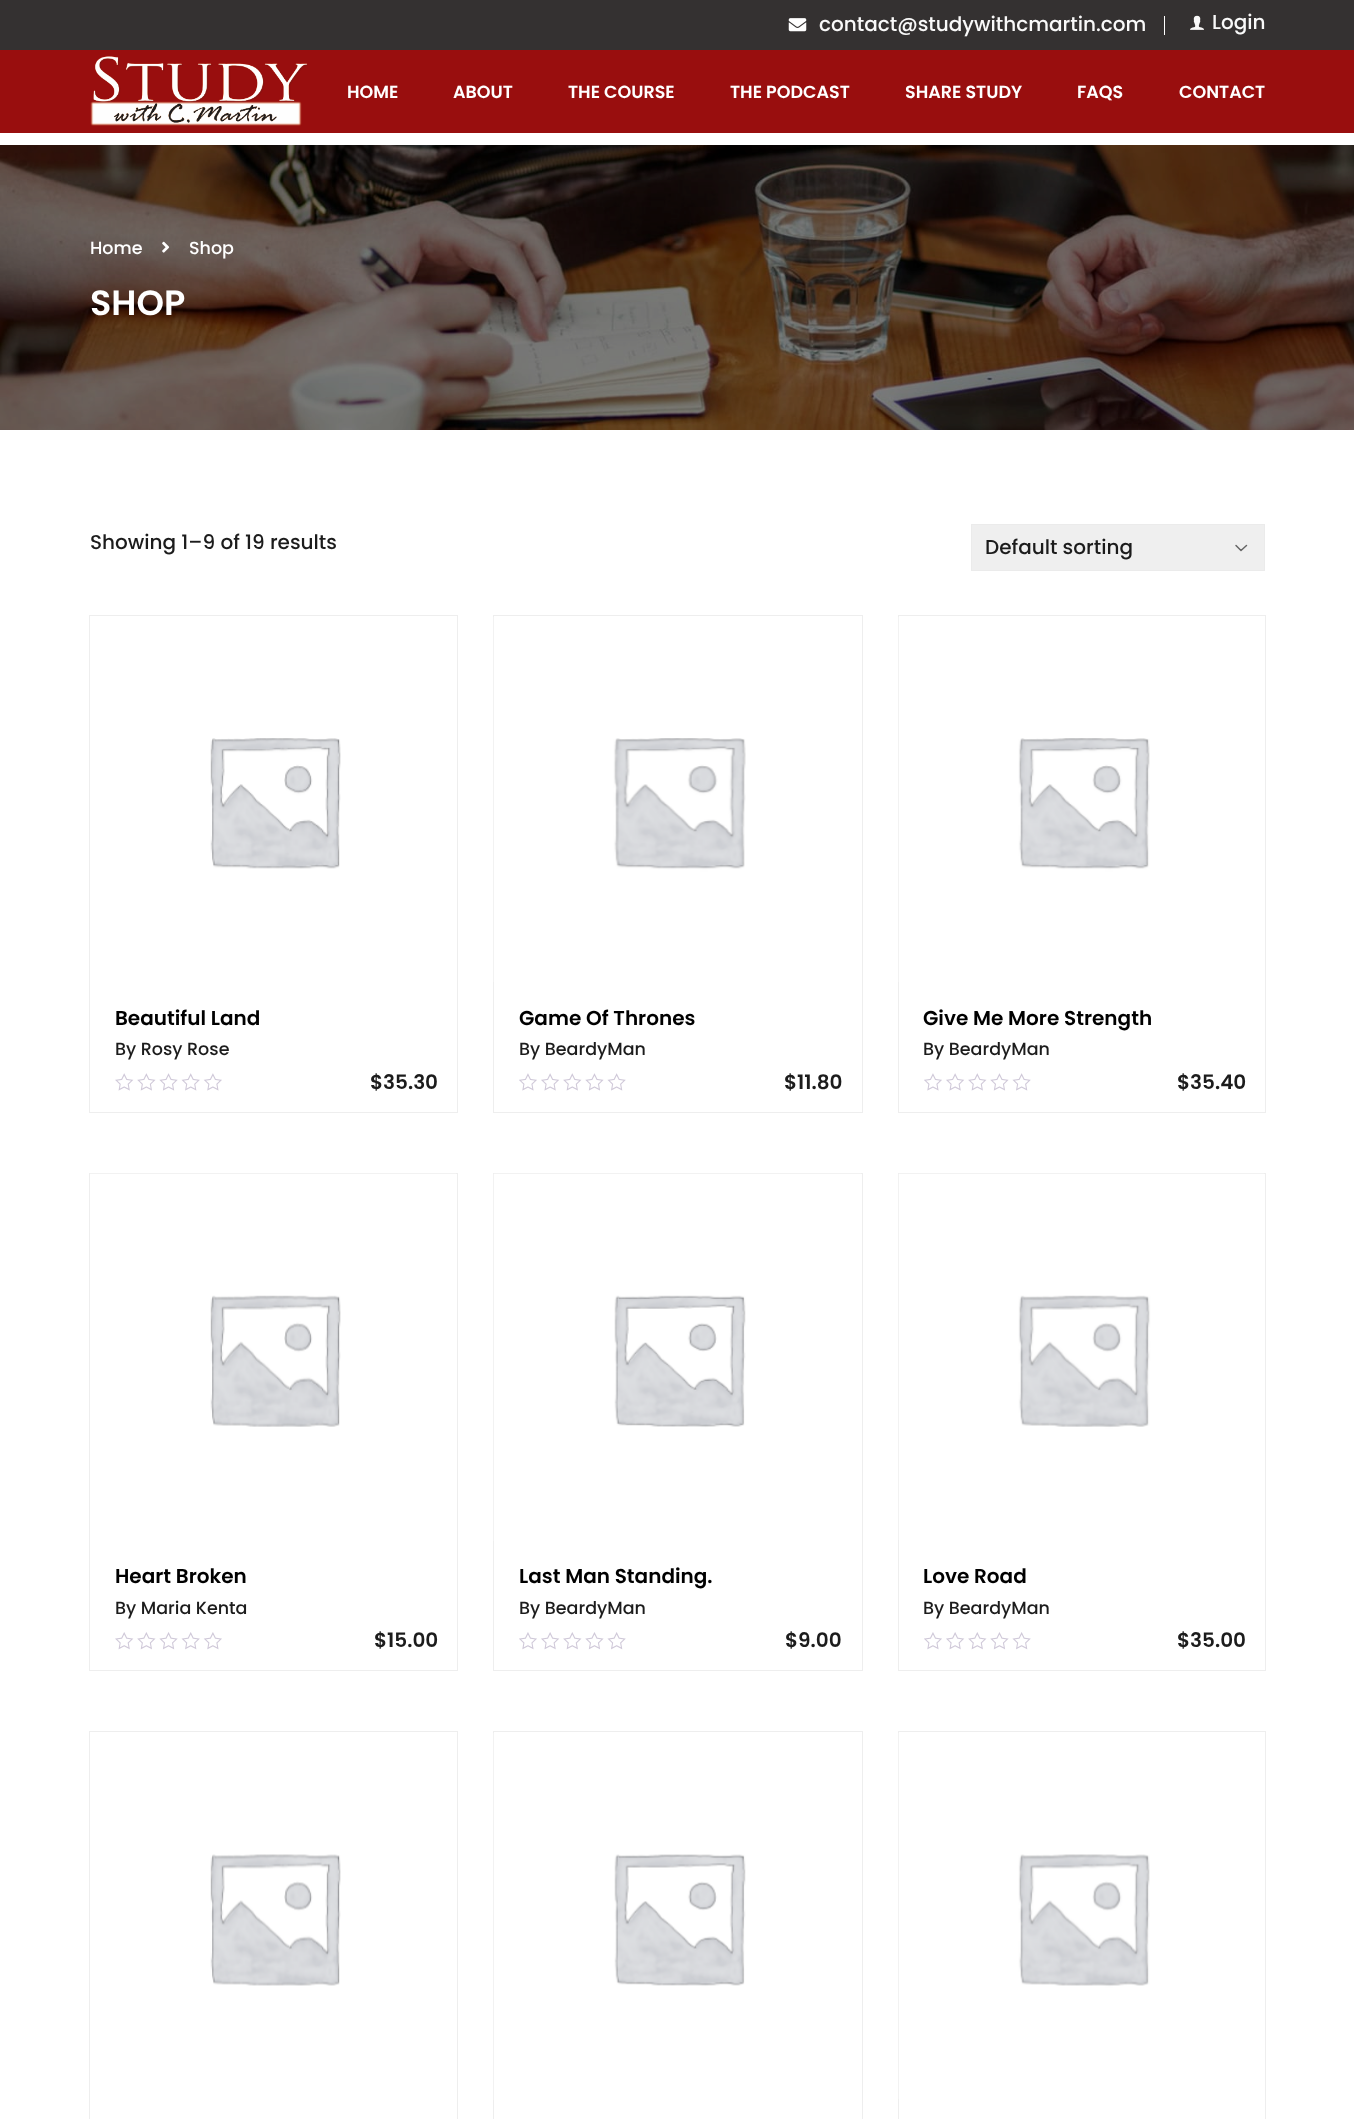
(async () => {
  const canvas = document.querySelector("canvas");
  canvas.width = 1354;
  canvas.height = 2119;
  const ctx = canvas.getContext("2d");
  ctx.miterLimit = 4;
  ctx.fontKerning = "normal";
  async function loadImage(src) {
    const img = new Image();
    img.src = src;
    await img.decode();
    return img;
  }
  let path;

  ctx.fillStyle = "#ffffff";
  ctx.fillRect(0, 0, 1354, 2119);
  ctx.fillStyle = "#990e0e";
  ctx.fillRect(0, 50, 1354, 83);
  ctx.fillStyle = "#343131";
  ctx.fillRect(0, 0, 1354, 50);
  ctx.drawImage(await loadImage("img/1.png"), 788, 18, 19, 14);
  ctx.fillStyle = "#ffffff";
  ctx.fillRect(1164, 16, 1, 19);
  ctx.drawImage(await loadImage("img/2.png"), 1190, 15, 14, 15);
  ctx.drawImage(await loadImage("img/3.png"), 90, 56, 218, 70);
  ctx.drawImage(await loadImage("img/4.png"), 0, 145, 1354, 285);
  ctx.drawImage(await loadImage("img/5.png"), 162, 241, 8, 12);
  ctx.fillStyle = "#efefef";
  ctx.fillRect(972, 525, 292, 45);
  path = new Path2D("M1246.5 545.5L1241 550.5L1236 545.5");
  ctx.strokeStyle = "#666666";
  ctx.lineWidth = 1.5;
  ctx.lineCap = "round";
  ctx.lineJoin = "round";
  ctx.stroke(path);
  ctx.strokeStyle = "#ebebeb";
  ctx.lineWidth = 1;
  ctx.lineJoin = "miter";
  ctx.strokeRect(971.5, 524.5, 293, 46);
  ctx.strokeStyle = "#eeeeee";
  ctx.strokeRect(89.5, 615.5, 368, 497);
  ctx.drawImage(await loadImage("img/6.png"), 210, 738, 131, 131);
  ctx.drawImage(await loadImage("img/7.png"), 115, 1073, 107, 18);
  ctx.strokeRect(493.5, 615.5, 369, 497);
  ctx.drawImage(await loadImage("img/8.png"), 493, 617, 253, 365);
  ctx.drawImage(await loadImage("img/9.png"), 519, 1073, 107, 18);
  ctx.strokeRect(898.5, 615.5, 367, 497);
  ctx.drawImage(await loadImage("img/10.png"), 898, 617, 252, 365);
  ctx.drawImage(await loadImage("img/9.png"), 924, 1073, 107, 18);
  ctx.strokeRect(89.5, 1173.5, 368, 497);
  ctx.drawImage(await loadImage("img/11.png"), 90, 1173, 366, 254);
  ctx.drawImage(await loadImage("img/12.png"), 115, 1632, 107, 18);
  ctx.strokeRect(493.5, 1173.5, 369, 497);
  ctx.drawImage(await loadImage("img/13.png"), 493, 1173, 368, 368);
  ctx.drawImage(await loadImage("img/14.png"), 519, 1632, 107, 18);
  ctx.strokeRect(898.5, 1173.5, 367, 497);
  ctx.drawImage(await loadImage("img/15.png"), 898, 1173, 366, 367);
  ctx.drawImage(await loadImage("img/14.png"), 924, 1632, 107, 18);
  ctx.strokeRect(89.5, 1731.5, 368, 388);
  ctx.drawImage(await loadImage("img/16.png"), 210, 1854, 131, 132);
  ctx.strokeRect(493.5, 1731.5, 369, 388);
  ctx.drawImage(await loadImage("img/17.png"), 493, 1733, 253, 367);
  ctx.strokeRect(898.5, 1731.5, 367, 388);
  ctx.drawImage(await loadImage("img/18.png"), 898, 1733, 252, 366);
  ctx.font = "500 20px Poppins";
  ctx.fillStyle = "#f9f9f9";
  ctx.fillText("contact@studywithcmartin.com", 819, 31);
  ctx.fillText("Login", 1212, 29);
  ctx.font = "600 17.5px Poppins";
  ctx.fillStyle = "#ffffff";
  for (const [text, x, y] of [
    ["HOME", 347, 98],
    ["ABOUT", 453, 98],
    ["THE COURSE", 568, 98],
    ["THE PODCAST", 730, 98],
    ["SHARE STUDY", 905, 98],
    ["FAQS", 1077, 98],
    ["CONTACT", 1179, 98],
  ]) {
    ctx.fillText(text, x, y);
  }
  ctx.font = "500 17.5px Poppins";
  ctx.fillText("Home", 90, 254);
  ctx.fillText("Shop", 189, 254);
  ctx.font = "600 35px Poppins";
  ctx.fillText("SHOP", 90, 315);
  ctx.font = "500 20px Poppins";
  ctx.fillStyle = "#1c1c1c";
  ctx.fillText("Showing 1–9 of 19 results", 90, 549);
  ctx.fillText("Default sorting", 985, 554);
  ctx.font = "600 20px Poppins";
  ctx.fillStyle = "#000000";
  ctx.fillText("Beautiful Land", 115, 1025);
  ctx.font = "500 17.5px Poppins";
  ctx.fillStyle = "#1c1c1c";
  ctx.fillText("By Rosy Rose", 115, 1055);
  ctx.font = "600 20px Poppins";
  ctx.fillText("$35.30", 370, 1089);
  ctx.fillStyle = "#000000";
  ctx.fillText("Game Of Thrones", 519, 1025);
  ctx.font = "500 17.5px Poppins";
  ctx.fillStyle = "#1c1c1c";
  ctx.fillText("By BeardyMan", 519, 1055);
  ctx.font = "600 20px Poppins";
  ctx.fillText("$11.80", 784, 1089);
  ctx.fillStyle = "#000000";
  ctx.fillText("Give Me More Strength", 923, 1025);
  ctx.font = "500 17.5px Poppins";
  ctx.fillStyle = "#1c1c1c";
  ctx.fillText("By BeardyMan", 923, 1055);
  ctx.font = "600 20px Poppins";
  ctx.fillText("$35.40", 1177, 1089);
  ctx.fillStyle = "#000000";
  ctx.fillText("Heart Broken", 115, 1583);
  ctx.font = "500 17.5px Poppins";
  ctx.fillStyle = "#1c1c1c";
  ctx.fillText("By Maria Kenta", 115, 1614);
  ctx.font = "600 20px Poppins";
  ctx.fillText("$15.00", 374, 1647);
  ctx.fillStyle = "#000000";
  ctx.fillText("Last Man Standing.", 519, 1583);
  ctx.font = "500 17.5px Poppins";
  ctx.fillStyle = "#1c1c1c";
  ctx.fillText("By BeardyMan", 519, 1614);
  ctx.font = "600 20px Poppins";
  ctx.fillText("$9.00", 785, 1647);
  ctx.fillStyle = "#000000";
  ctx.fillText("Love Road", 923, 1583);
  ctx.font = "500 17.5px Poppins";
  ctx.fillStyle = "#1c1c1c";
  ctx.fillText("By BeardyMan", 923, 1614);
  ctx.font = "600 20px Poppins";
  ctx.fillText("$35.00", 1177, 1647);
})();
